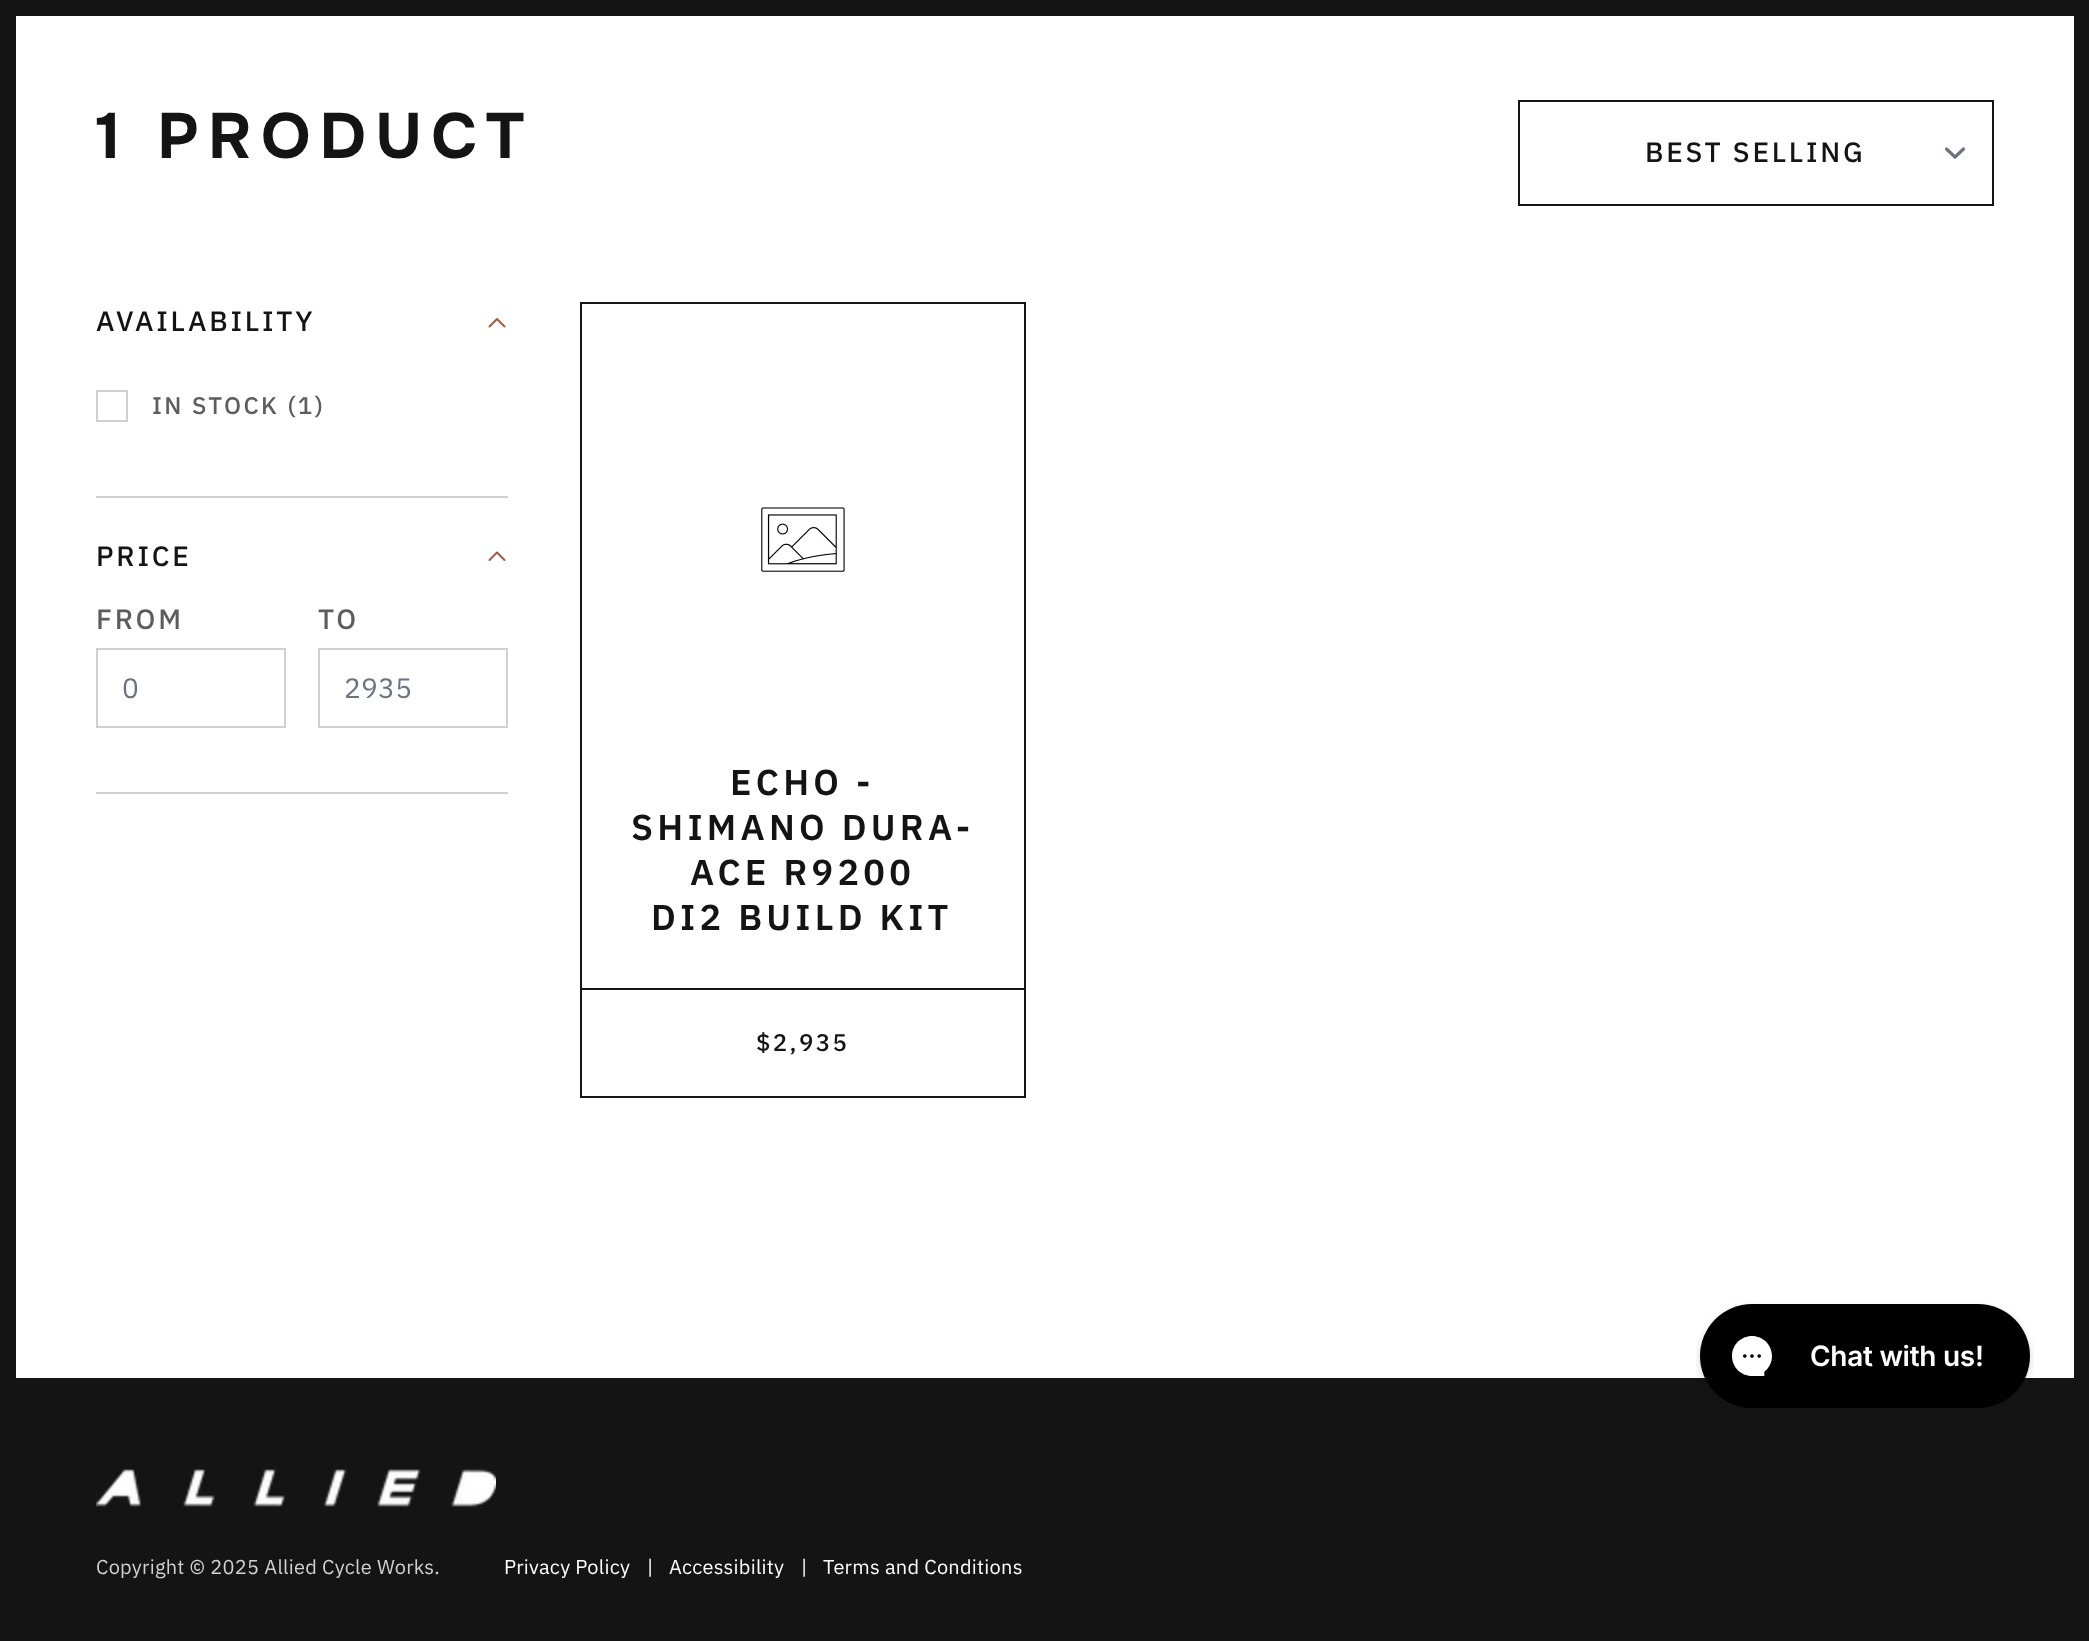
(async () => {
  const canvas = document.querySelector("canvas");
  canvas.width = 2089;
  canvas.height = 1641;
  const ctx = canvas.getContext("2d");
  ctx.miterLimit = 4;
  ctx.fontKerning = "normal";
  async function loadImage(src) {
    const img = new Image();
    img.src = src;
    await img.decode();
    return img;
  }
  let path;

  ctx.fillStyle = "#141414";
  ctx.fillRect(0, 0, 2089, 1641);
  ctx.fillStyle = "#ffffff";
  ctx.fillRect(16, 16, 2058, 1362);
  path = new Path2D("M1946.5 149L1955 157L1963.5 149");
  ctx.strokeStyle = "#6b7280";
  ctx.lineWidth = 3.2;
  ctx.lineCap = "round";
  ctx.lineJoin = "round";
  ctx.stroke(path);
  ctx.strokeStyle = "#141414";
  ctx.lineWidth = 2;
  ctx.lineJoin = "miter";
  ctx.strokeRect(1519, 101, 474, 104);
  path = new Path2D("M489.5 326.5L497 319L504.5 326.5");
  ctx.strokeStyle = "#a7593f";
  ctx.lineJoin = "round";
  ctx.stroke(path);
  ctx.strokeStyle = "#d0d0d0";
  ctx.lineJoin = "miter";
  ctx.strokeRect(97, 391, 30, 30);
  ctx.fillStyle = "#d0d0d0";
  ctx.fillRect(96, 496, 412, 2);
  path = new Path2D("M489.5 560L497 552.5L504.5 560");
  ctx.strokeStyle = "#a7593f";
  ctx.lineJoin = "round";
  ctx.stroke(path);
  ctx.strokeStyle = "#d0d0d0";
  ctx.lineJoin = "miter";
  ctx.strokeRect(97, 649, 188, 78);
  ctx.strokeRect(319, 649, 188, 78);
  ctx.fillRect(96, 792, 412, 2);
  ctx.strokeStyle = "#141414";
  ctx.strokeRect(581, 303, 444, 794);
  ctx.drawImage(await loadImage("img/1.png"), 761, 507, 84, 65);
  ctx.fillStyle = "#141414";
  ctx.fillRect(582, 988, 442, 2);
  ctx.drawImage(await loadImage("img/2.png"), 96, 1469, 400, 38);
  ctx.drawImage(await loadImage("img/3.png"), 1696, 1303, 338, 105);
  ctx.letterSpacing = "9px";
  ctx.font = "bold 64px Onest";
  ctx.fillText("1 PRODUCT", 96, 158);
  ctx.letterSpacing = "2.75px";
  ctx.font = "500 28px IBM Plex Sans";
  ctx.fillText("BEST SELLING", 1645, 162);
  ctx.fillText("AVAILABILITY", 96, 331);
  ctx.letterSpacing = "2.4px";
  ctx.font = "500 24px IBM Plex Sans";
  ctx.fillStyle = "#5d5d5d";
  ctx.fillText("IN STOCK (1)", 152, 414);
  ctx.letterSpacing = "2.75px";
  ctx.font = "500 28px IBM Plex Sans";
  ctx.fillStyle = "#141414";
  ctx.fillText("PRICE", 96, 566);
  ctx.fillStyle = "#5d5d5d";
  ctx.fillText("FROM", 96, 629);
  ctx.letterSpacing = "0.25px";
  ctx.font = "28px IBM Plex Sans";
  ctx.fillStyle = "#6b7280";
  ctx.fillText("0", 122, 698);
  ctx.letterSpacing = "2.75px";
  ctx.font = "500 28px IBM Plex Sans";
  ctx.fillStyle = "#5d5d5d";
  ctx.fillText("TO", 318, 629);
  ctx.letterSpacing = "0.25px";
  ctx.font = "28px IBM Plex Sans";
  ctx.fillStyle = "#6b7280";
  ctx.fillText("2935", 344, 698);
  ctx.letterSpacing = "4.25px";
  ctx.font = "600 36px IBM Plex Sans";
  ctx.fillStyle = "#141414";
  for (const [text, x, y] of [
    ["ECHO -", 730, 795],
    ["SHIMANO DURA-", 631, 840],
    ["ACE R9200", 690, 885],
    ["DI2 BUILD KIT", 651, 930],
  ]) {
    ctx.fillText(text, x, y);
  }
  ctx.letterSpacing = "2.4px";
  ctx.font = "500 24px IBM Plex Sans";
  ctx.fillText("$2,935", 756, 1051);
  ctx.letterSpacing = "0.25px";
  ctx.font = "20px IBM Plex Sans";
  ctx.fillStyle = "#d0d0d0";
  ctx.fillText("Copyright © 2025 Allied Cycle Works.", 96, 1574);
  ctx.fillStyle = "#ffffff";
  for (const [text, x, y] of [
    ["Privacy Policy", 504, 1574],
    ["|", 647, 1574],
    ["Accessibility", 669, 1574],
    ["|", 801, 1574],
    ["Terms and Conditions", 823, 1574],
  ]) {
    ctx.fillText(text, x, y);
  }
})();
